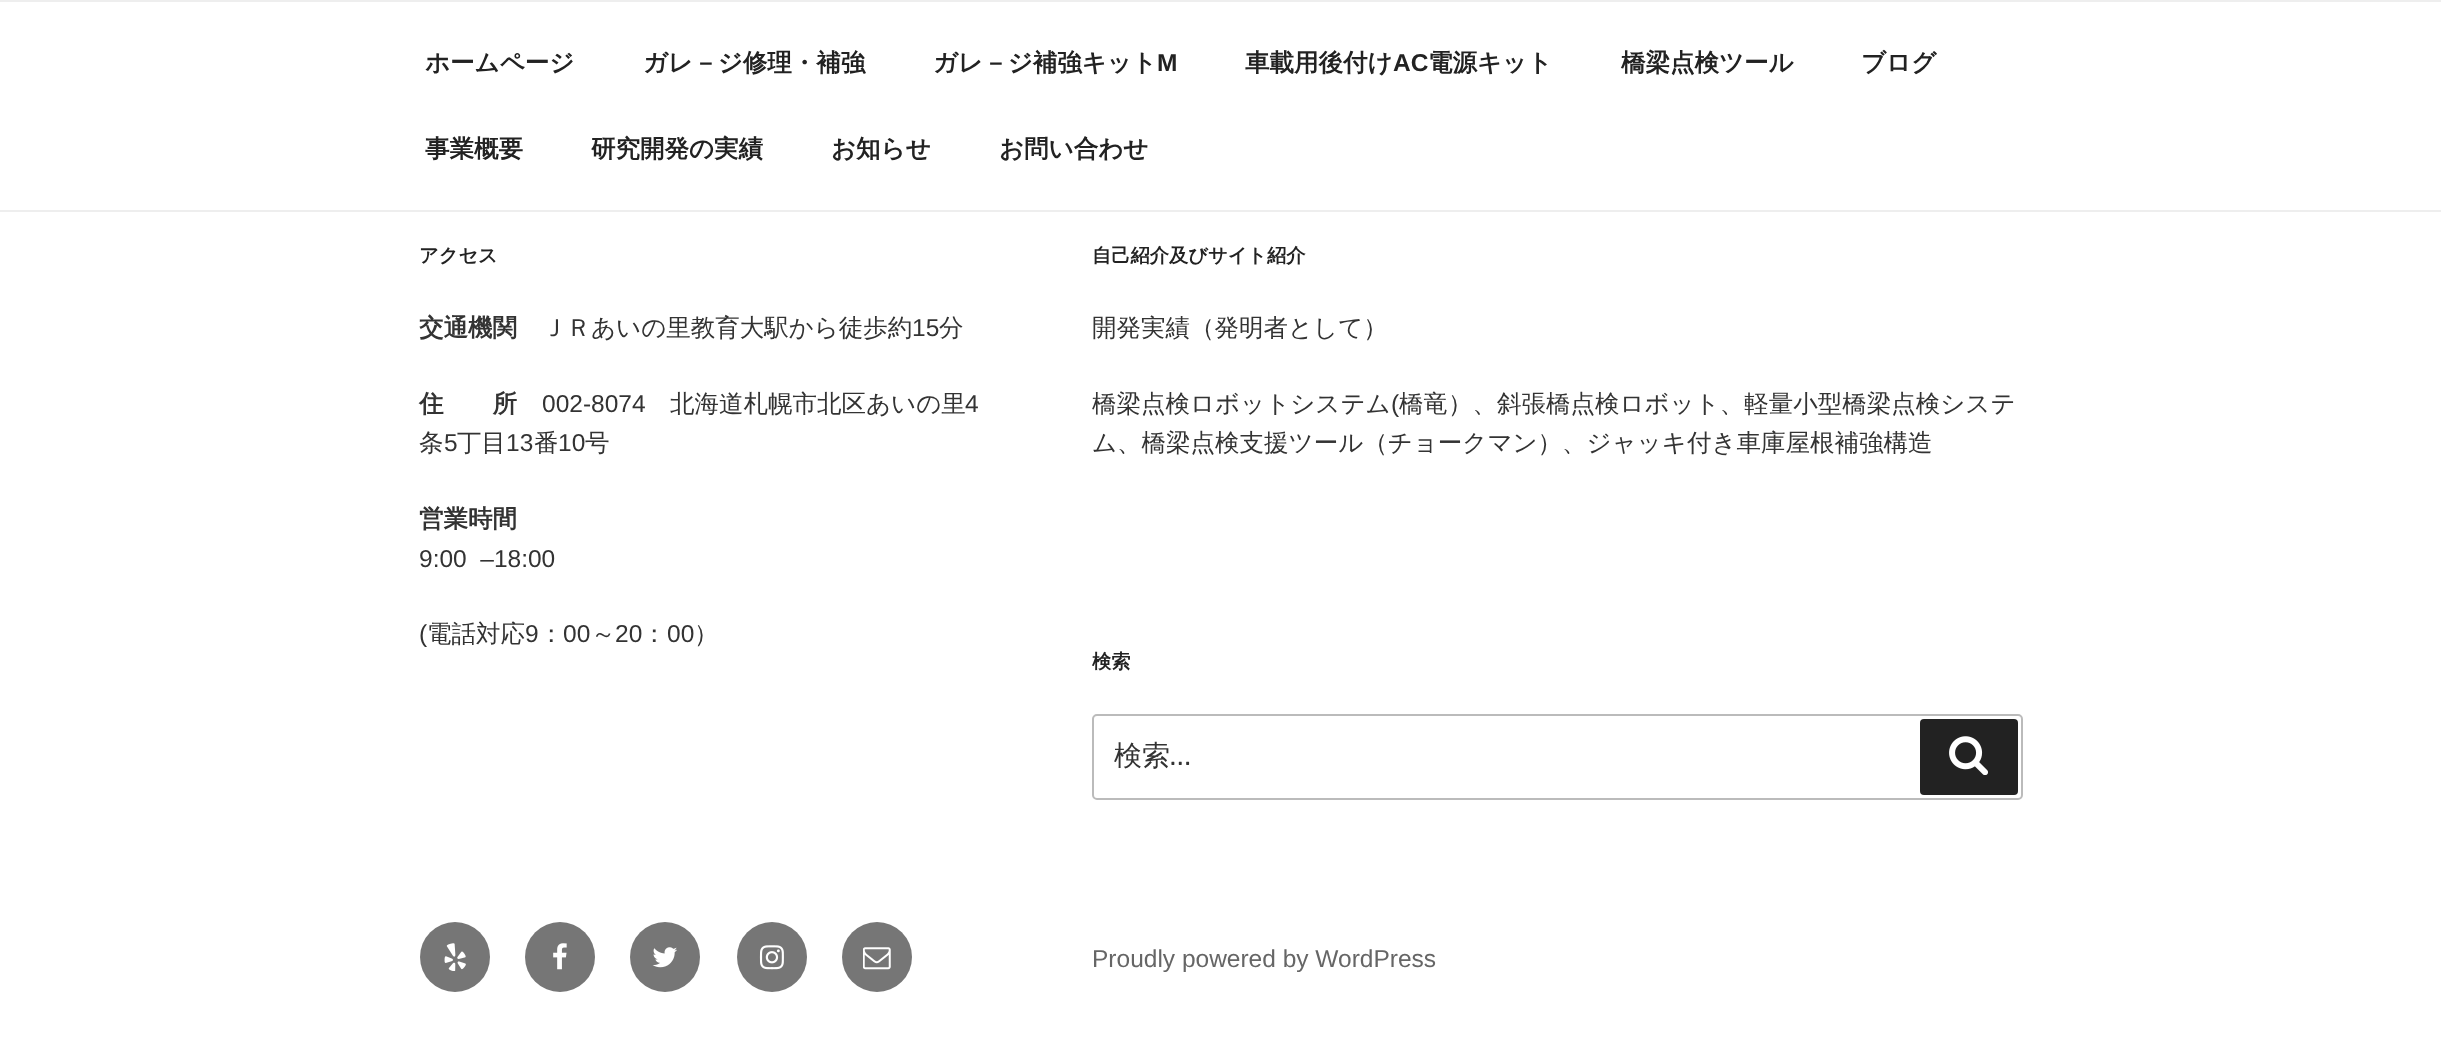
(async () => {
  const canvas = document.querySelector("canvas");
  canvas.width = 2441;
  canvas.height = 1042;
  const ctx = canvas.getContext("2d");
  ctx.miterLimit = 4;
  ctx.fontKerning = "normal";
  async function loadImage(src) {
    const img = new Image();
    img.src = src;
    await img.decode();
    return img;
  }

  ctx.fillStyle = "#ffffff";
  ctx.fillRect(0, 0, 2441, 1042);
  ctx.fillStyle = "#eeeeee";
  ctx.fillRect(0, 0, 2441, 2);
  ctx.fillRect(0, 210, 2441, 2);
  ctx.beginPath();
  ctx.roundRect(1093, 715, 929, 84, 4);
  ctx.strokeStyle = "#bbbbbb";
  ctx.lineWidth = 2;
  ctx.stroke();
  ctx.fillStyle = "#222222";
  ctx.beginPath();
  ctx.roundRect(1920, 719, 98, 76, 4);
  ctx.fill();
  ctx.drawImage(await loadImage("img/1.png"), 1949, 736, 39, 39);
  ctx.fillStyle = "#767676";
  ctx.beginPath();
  ctx.arc(455, 957, 35, 0, Math.PI * 2);
  ctx.fill();
  ctx.drawImage(await loadImage("img/2.png"), 444, 943, 22, 28);
  ctx.beginPath();
  ctx.arc(560, 957, 35, 0, Math.PI * 2);
  ctx.fill();
  ctx.drawImage(await loadImage("img/3.png"), 553, 943, 14, 27);
  ctx.beginPath();
  ctx.arc(665, 957, 35, 0, Math.PI * 2);
  ctx.fill();
  ctx.drawImage(await loadImage("img/4.png"), 652, 947, 25, 21);
  ctx.beginPath();
  ctx.arc(772, 957, 35, 0, Math.PI * 2);
  ctx.fill();
  ctx.drawImage(await loadImage("img/5.png"), 759, 945, 25, 25);
  ctx.beginPath();
  ctx.arc(877, 957, 35, 0, Math.PI * 2);
  ctx.fill();
  ctx.drawImage(await loadImage("img/6.png"), 863, 947, 28, 23);
  ctx.font = "bold 24.5px WenQuanYi Zen Hei";
  ctx.fillStyle = "#222222";
  for (const [text, x, y] of [
    ["ホームページ", 425, 71],
    ["ガレ－ジ修理・補強", 643, 71],
    ["ガレ－ジ補強キット", 933, 71],
  ]) {
    ctx.fillText(text, x, y);
  }
  ctx.font = "bold 24.5px Liberation Sans";
  ctx.fillText("M", 1157, 71);
  ctx.font = "bold 24.5px WenQuanYi Zen Hei";
  ctx.fillText("車載用後付け", 1245, 71);
  ctx.font = "bold 24.5px Liberation Sans";
  ctx.fillText("AC", 1393, 71);
  ctx.font = "bold 24.5px WenQuanYi Zen Hei";
  for (const [text, x, y] of [
    ["電源キット", 1428, 71],
    ["橋梁点検ツール", 1621, 71],
    ["ブログ", 1861, 71],
    ["事業概要", 425, 157],
    ["研究開発の実績", 591, 157],
    ["お知らせ", 831, 157],
    ["お問い合わせ", 999, 157],
  ]) {
    ctx.fillText(text, x, y);
  }
  ctx.font = "bold 19.25px WenQuanYi Zen Hei";
  ctx.fillText("アクセス", 419, 262);
  ctx.font = "bold 24.5px WenQuanYi Zen Hei";
  ctx.fillStyle = "#333333";
  ctx.fillText("交通機関", 419, 336);
  ctx.font = "500 24.5px WenQuanYi Zen Hei";
  ctx.fillText("ＪＲあいの里教育大駅から徒歩約", 542, 336);
  ctx.font = "24.5px Liberation Sans";
  ctx.fillText("15", 912, 336);
  ctx.font = "500 24.5px WenQuanYi Zen Hei";
  ctx.fillText("分", 939, 336);
  ctx.font = "bold 24.5px WenQuanYi Zen Hei";
  ctx.fillText("住　　所", 419, 412);
  ctx.font = "24.5px Liberation Sans";
  ctx.fillText("002-8074", 542, 412);
  ctx.font = "500 24.5px WenQuanYi Zen Hei";
  ctx.fillText("北海道札幌市北区あいの里", 670, 412);
  ctx.font = "24.5px Liberation Sans";
  ctx.fillText("4", 965, 412);
  ctx.font = "500 24.5px WenQuanYi Zen Hei";
  ctx.fillText("条", 419, 451);
  ctx.font = "24.5px Liberation Sans";
  ctx.fillText("5", 444, 451);
  ctx.font = "500 24.5px WenQuanYi Zen Hei";
  ctx.fillText("丁目", 457, 451);
  ctx.font = "24.5px Liberation Sans";
  ctx.fillText("13", 506, 451);
  ctx.font = "500 24.5px WenQuanYi Zen Hei";
  ctx.fillText("番", 534, 451);
  ctx.font = "24.5px Liberation Sans";
  ctx.fillText("10", 558, 451);
  ctx.font = "500 24.5px WenQuanYi Zen Hei";
  ctx.fillText("号", 585, 451);
  ctx.font = "bold 24.5px WenQuanYi Zen Hei";
  ctx.fillText("営業時間", 419, 527);
  ctx.font = "24.5px Liberation Sans";
  ctx.fillText("9:00  –18:00", 419, 567);
  ctx.fillText("(", 419, 642);
  ctx.font = "500 24.5px WenQuanYi Zen Hei";
  ctx.fillText("電話対応", 427, 642);
  ctx.font = "24.5px Liberation Sans";
  ctx.fillText("9", 525, 642);
  ctx.font = "500 24.5px WenQuanYi Zen Hei";
  ctx.fillText("：", 539, 642);
  ctx.font = "24.5px Liberation Sans";
  ctx.fillText("00", 563, 642);
  ctx.font = "500 24.5px WenQuanYi Zen Hei";
  ctx.fillText("～", 591, 642);
  ctx.font = "24.5px Liberation Sans";
  ctx.fillText("20", 615, 642);
  ctx.font = "500 24.5px WenQuanYi Zen Hei";
  ctx.fillText("：", 642, 642);
  ctx.font = "24.5px Liberation Sans";
  ctx.fillText("00", 667, 642);
  ctx.font = "500 24.5px WenQuanYi Zen Hei";
  ctx.fillText("）", 694, 642);
  ctx.font = "bold 19.25px WenQuanYi Zen Hei";
  ctx.fillStyle = "#222222";
  ctx.fillText("自己紹介及びサイト紹介", 1092, 262);
  ctx.font = "500 24.5px WenQuanYi Zen Hei";
  ctx.fillStyle = "#333333";
  ctx.fillText("開発実績（発明者として）", 1092, 336);
  ctx.fillText("橋梁点検ロボットシステム", 1092, 412);
  ctx.font = "24.5px Liberation Sans";
  ctx.fillText("(", 1391, 412);
  ctx.font = "500 24.5px WenQuanYi Zen Hei";
  ctx.fillText("橋竜）、斜張橋点検ロボット、軽量小型橋梁点検システ", 1399, 412);
  ctx.fillText("ム、橋梁点検支援ツール（チョークマン）、ジャッキ付き車庫屋根補強構造", 1092, 451);
  ctx.font = "bold 19.25px WenQuanYi Zen Hei";
  ctx.fillStyle = "#222222";
  ctx.fillText("検索", 1092, 668);
  ctx.font = "500 28px WenQuanYi Zen Hei";
  ctx.fillStyle = "#333333";
  ctx.fillText("検索", 1114, 765);
  ctx.font = "28px Libre Franklin";
  ctx.fillText("…", 1170, 765);
  ctx.font = "24.5px Liberation Sans";
  ctx.fillStyle = "#666666";
  ctx.fillText("Proudly powered by WordPress", 1092, 967);
})();
